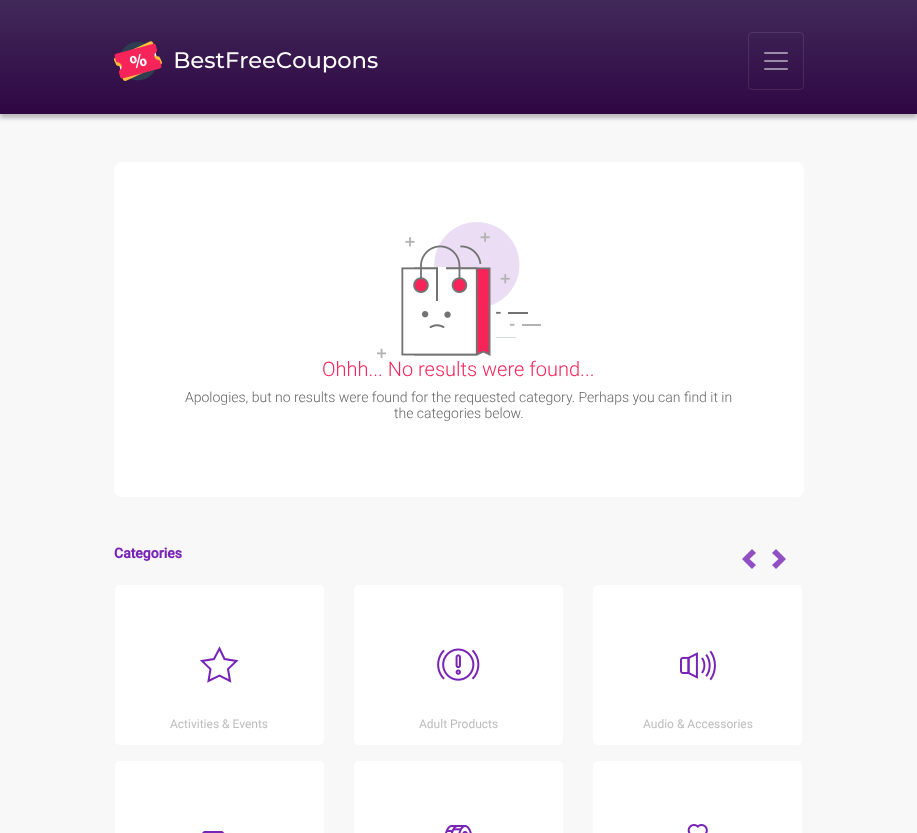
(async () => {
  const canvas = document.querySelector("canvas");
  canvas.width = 917;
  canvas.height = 833;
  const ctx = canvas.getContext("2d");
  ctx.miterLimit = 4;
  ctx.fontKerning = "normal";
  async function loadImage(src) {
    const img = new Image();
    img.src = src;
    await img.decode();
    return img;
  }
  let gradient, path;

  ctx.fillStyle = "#f8f8f8";
  ctx.fillRect(0, 0, 917, 833);
  ctx.fillStyle = "rgba(0, 0, 0, 0.25)";
  ctx.filter = "blur(2px)";
  ctx.beginPath();
  ctx.rect(0, 4, 917, 114);
  ctx.fill();
  ctx.filter = "none";
  gradient = ctx.createLinearGradient(459, 0, 459, 114);
  gradient.addColorStop(0, "#41295a");
  gradient.addColorStop(1, "#2f0743");
  ctx.fillStyle = gradient;
  ctx.fillRect(0, 0, 917, 114);
  ctx.drawImage(await loadImage("img/1.png"), 114, 41, 264, 40);
  ctx.beginPath();
  ctx.roundRect(748.5, 32.5, 55, 57, 3.5);
  ctx.strokeStyle = "rgba(255, 255, 255, 0.1)";
  ctx.stroke();
  ctx.drawImage(await loadImage("img/2.png"), 764, 52, 24, 18);
  ctx.fillStyle = "#ffffff";
  ctx.beginPath();
  ctx.roundRect(114, 162, 690, 335, 8);
  ctx.fill();
  ctx.drawImage(await loadImage("img/3.png"), 377, 222, 164, 136);
  ctx.fillStyle = "#924ec3";
  path = new Path2D("M752 549L742 559L752 569L756 565L749.5 559L756 553ZM776 549L772 553L778.5 559L772 565L776 569L786 559Z");
  ctx.fill(path);
  ctx.fillStyle = "#ffffff";
  ctx.beginPath();
  ctx.roundRect(115, 585, 209, 160, 5);
  ctx.fill();
  path = new Path2D("M219.5 648.5L224.5 659L236.5 661L228 669L230 681L219.5 675.5L208.5 681L210.5 669L202 661L214 659Z");
  ctx.strokeStyle = "#7824b6";
  ctx.lineWidth = 2;
  ctx.stroke(path);
  ctx.beginPath();
  ctx.roundRect(354, 585, 209, 160, 5);
  ctx.fill();
  ctx.drawImage(await loadImage("img/4.png"), 437, 648, 43, 33);
  ctx.beginPath();
  ctx.roundRect(593, 585, 209, 160, 5);
  ctx.fill();
  ctx.drawImage(await loadImage("img/5.png"), 680, 650, 36, 31);
  ctx.beginPath();
  ctx.roundRect(115, 761, 209, 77, 5);
  ctx.fill();
  ctx.drawImage(await loadImage("img/6.png"), 202, 831, 23, 2);
  ctx.beginPath();
  ctx.roundRect(354, 761, 209, 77, 5);
  ctx.fill();
  ctx.drawImage(await loadImage("img/7.png"), 445, 825, 27, 8);
  ctx.beginPath();
  ctx.roundRect(593, 761, 209, 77, 5);
  ctx.fill();
  ctx.drawImage(await loadImage("img/8.png"), 687, 824, 21, 9);
  ctx.font = "300 20px Roboto";
  ctx.fillStyle = "#f62459";
  ctx.fillText("Ohhh... No results were found...", 322, 376);
  ctx.font = "300 14px Roboto";
  ctx.fillStyle = "#666666";
  ctx.fillText("Apologies, but no results were found for the requested category. Perhaps you can find it in", 185, 402);
  ctx.fillText("the categories below.", 394, 418);
  ctx.font = "bold 14px Roboto";
  ctx.fillStyle = "#7824b6";
  ctx.fillText("Categories", 114, 558);
  ctx.font = "12px Roboto";
  ctx.fillStyle = "#bdbdbd";
  for (const [text, x, y] of [
    ["Activities & Events", 170, 728],
    ["Adult Products", 419, 728],
    ["Audio & Accessories", 643, 728],
  ]) {
    ctx.fillText(text, x, y);
  }
})();
